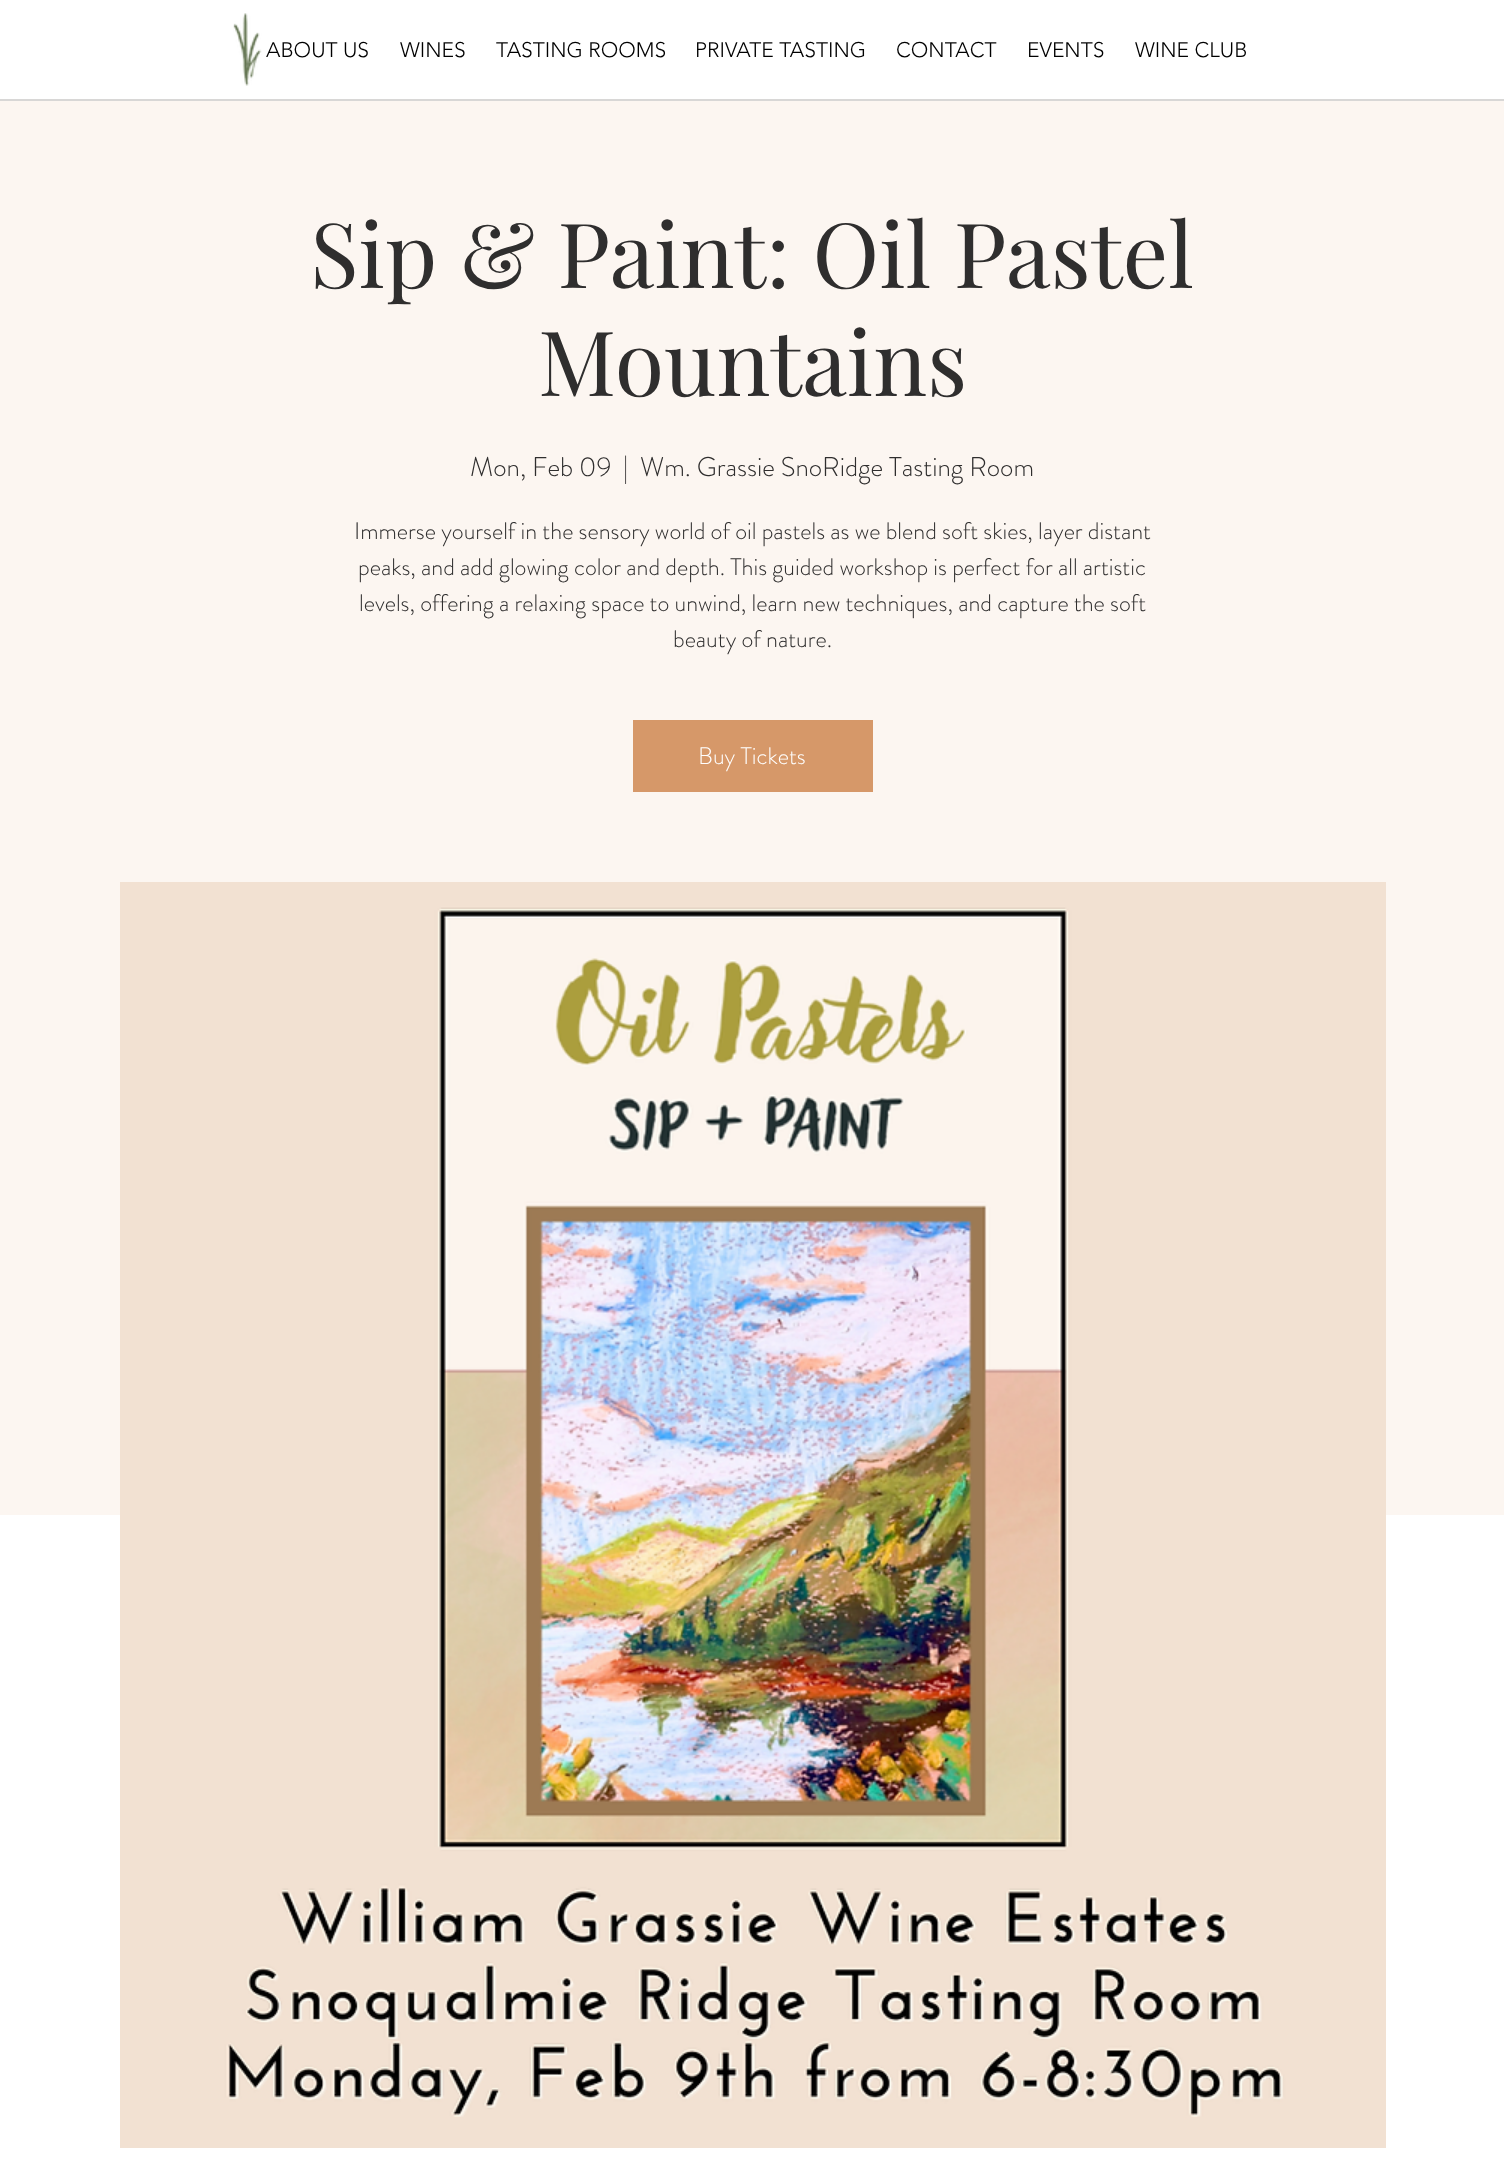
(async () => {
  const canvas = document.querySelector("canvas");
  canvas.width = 1504;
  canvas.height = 2158;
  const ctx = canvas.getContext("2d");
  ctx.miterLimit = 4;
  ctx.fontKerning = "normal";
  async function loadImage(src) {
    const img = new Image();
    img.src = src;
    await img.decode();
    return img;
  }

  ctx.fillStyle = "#ffffff";
  ctx.fillRect(0, 0, 1504, 2158);
  ctx.fillStyle = "#fcf6f1";
  ctx.fillRect(0, 99, 1504, 1416);
  ctx.strokeStyle = "rgba(204, 204, 204, 0.75)";
  ctx.lineWidth = 2;
  ctx.strokeRect(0, 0, 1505, 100);
  ctx.fillStyle = "#ffffff";
  ctx.fillRect(0, 0, 1504, 99);
  ctx.drawImage(await loadImage("img/1.png"), 233, 13, 29, 73);
  ctx.fillStyle = "#d69869";
  ctx.fillRect(633, 720, 240, 72);
  ctx.drawImage(await loadImage("img/2.png"), 120, 882, 1266, 1266);
  ctx.font = "300 21px 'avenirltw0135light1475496'";
  ctx.fillStyle = "#000000";
  for (const [text, x, y] of [
    ["ABOUT US", 266, 57],
    ["WINES", 400, 57],
    ["TASTING ROOMS", 496, 57],
    ["PRIVATE TASTING", 695, 57],
    ["CONTACT", 896, 57],
    ["EVENTS", 1027, 57],
    ["WINE CLUB", 1135, 57],
  ]) {
    ctx.fillText(text, x, y);
  }
  ctx.font = "90px Playfair Display";
  ctx.fillStyle = "#2f2e2e";
  ctx.fillText("Sip & Paint: Oil Pastel", 310, 288);
  ctx.fillText("Mountains", 538, 396);
  ctx.font = "300 27px 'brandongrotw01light'";
  for (const [text, x, y] of [
    ["Mon, Feb 09", 470, 476],
    ["|", 623, 476],
    ["Wm. Grassie SnoRidge Tasting Room", 640, 476],
  ]) {
    ctx.fillText(text, x, y);
  }
  ctx.font = "300 24px 'brandongrotw01light'";
  for (const [text, x, y] of [
    ["Immerse yourself in the sensory world of oil pastels as we blend soft skies, layer distant", 354, 539],
    ["peaks, and add glowing color and depth. This guided workshop is perfect for all artistic", 358, 575],
    ["levels, offering a relaxing space to unwind, learn new techniques, and capture the soft", 359, 611],
    ["beauty of nature.", 673, 647],
  ]) {
    ctx.fillText(text, x, y);
  }
  ctx.fillStyle = "#ffffff";
  ctx.fillText("Buy Tickets", 698, 764);
})();
